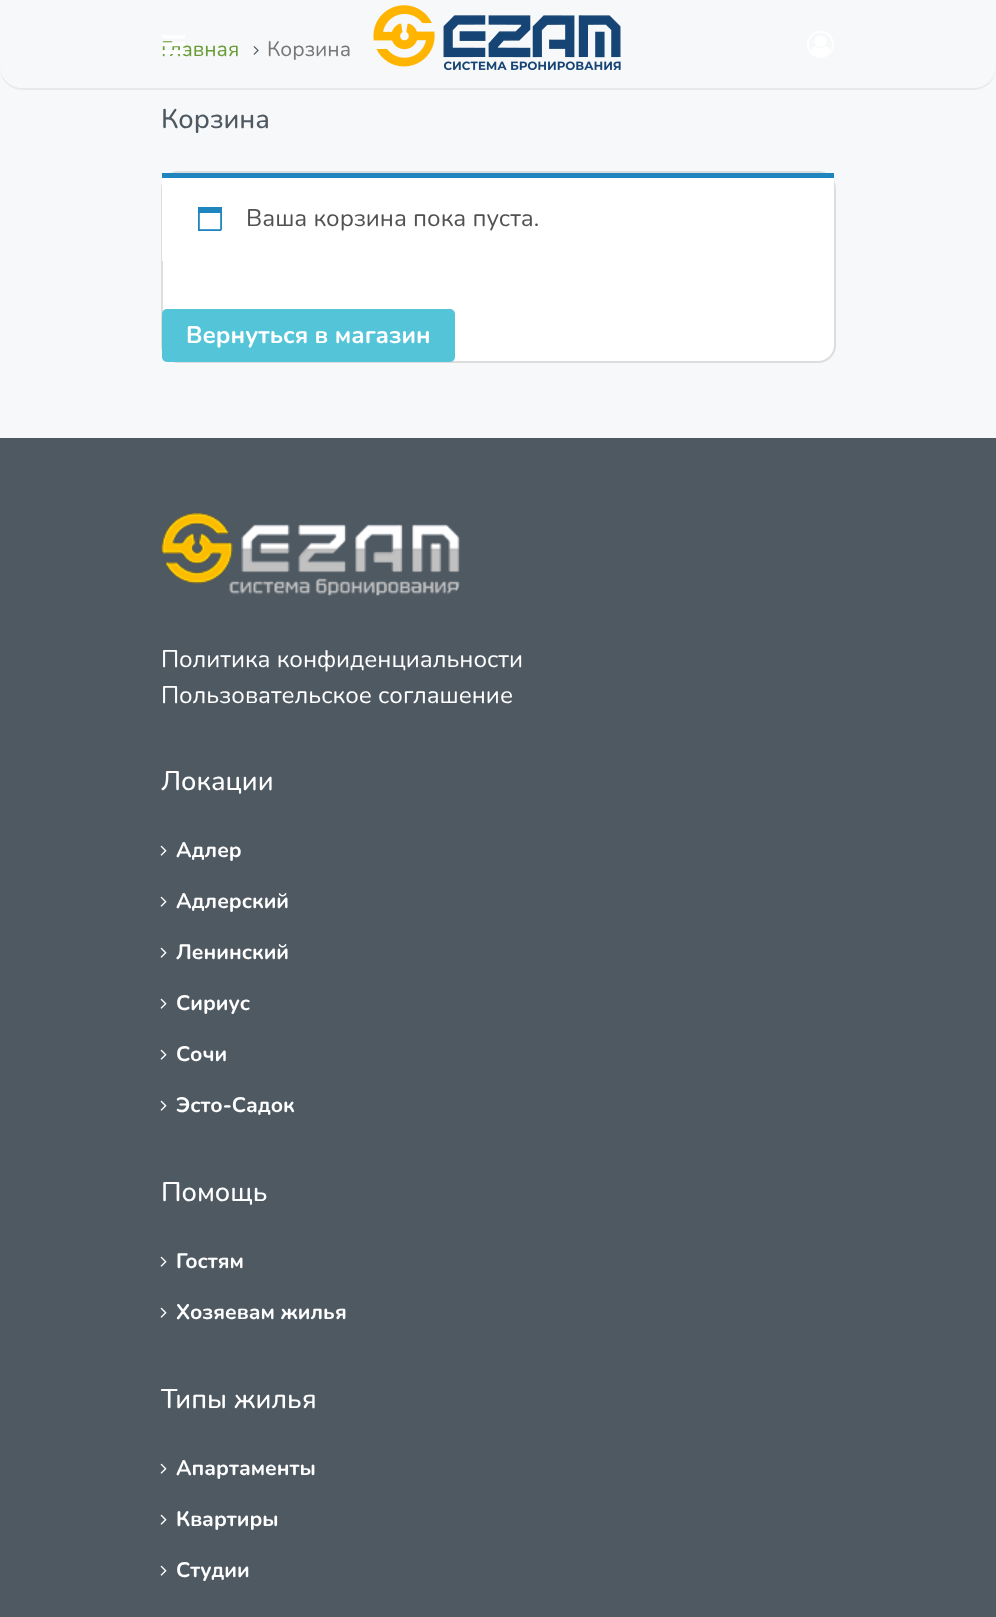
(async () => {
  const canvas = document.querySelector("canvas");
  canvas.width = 996;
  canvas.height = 1617;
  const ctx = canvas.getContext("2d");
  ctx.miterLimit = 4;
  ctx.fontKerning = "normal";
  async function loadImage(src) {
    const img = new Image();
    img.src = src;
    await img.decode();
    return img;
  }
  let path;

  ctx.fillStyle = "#f7f8f9";
  ctx.fillRect(0, 0, 996, 1617);
  ctx.fillStyle = "#e8e9ea";
  path = new Path2D("M0 66V67C0 80 10 90 23 90H973C986 90 996 80 996 67V66C996 78 986 88 974 88H22C10 88 0 78 0 66Z");
  ctx.fill(path);
  ctx.drawImage(await loadImage("img/2.png"), 373, 5, 248, 66);
  ctx.drawImage(await loadImage("img/3.png"), 807, 31, 27, 27);
  ctx.drawImage(await loadImage("img/4.png"), 253, 46, 6, 9);
  ctx.fillStyle = "#ffffff";
  ctx.beginPath();
  ctx.roundRect(162, 172, 673, 190, 17);
  ctx.fill();
  ctx.strokeStyle = "#dddddd";
  ctx.lineWidth = 2;
  ctx.stroke();
  ctx.fillRect(162, 178, 672, 83);
  ctx.fillStyle = "#1e85be";
  ctx.fillRect(162, 173, 672, 5);
  ctx.drawImage(await loadImage("img/5.png"), 198, 207, 24, 24);
  ctx.fillStyle = "#54c4d9";
  ctx.beginPath();
  ctx.roundRect(162, 309, 293, 53, 5);
  ctx.fill();
  ctx.fillStyle = "#4f5962";
  ctx.fillRect(0, 438, 996, 1179);
  ctx.drawImage(await loadImage("img/6.png"), 160, 513, 300, 83);
  ctx.drawImage(await loadImage("img/7.png"), 160, 845, 7, 11);
  ctx.drawImage(await loadImage("img/7.png"), 160, 896, 7, 11);
  ctx.drawImage(await loadImage("img/7.png"), 160, 947, 7, 11);
  ctx.drawImage(await loadImage("img/7.png"), 160, 998, 7, 11);
  ctx.drawImage(await loadImage("img/7.png"), 160, 1049, 7, 11);
  ctx.drawImage(await loadImage("img/7.png"), 160, 1100, 7, 11);
  ctx.drawImage(await loadImage("img/7.png"), 160, 1256, 7, 11);
  ctx.drawImage(await loadImage("img/7.png"), 160, 1307, 7, 11);
  ctx.drawImage(await loadImage("img/7.png"), 160, 1463, 7, 11);
  ctx.drawImage(await loadImage("img/7.png"), 160, 1514, 7, 11);
  ctx.drawImage(await loadImage("img/7.png"), 160, 1565, 7, 11);
  ctx.font = "21px Nunito";
  ctx.fillStyle = "#6a9d37";
  ctx.fillText("Главная", 161, 56);
  ctx.drawImage(await loadImage("img/1.png"), 162, 35, 24, 19);
  ctx.fillStyle = "#777777";
  ctx.fillText("Корзина", 267, 56);
  ctx.font = "500 27px Nunito";
  ctx.fillStyle = "#4f5962";
  ctx.fillText("Корзина", 161, 128);
  ctx.font = "24px Nunito";
  ctx.fillStyle = "#515151";
  ctx.fillText("Ваша корзина пока пуста.", 246, 226);
  ctx.font = "bold 24px Nunito";
  ctx.fillStyle = "#ffffff";
  ctx.fillText("Вернуться в магазин", 186, 343);
  ctx.font = "24px Nunito";
  ctx.fillText("Политика конфиденциальности", 161, 667);
  ctx.fillText("Пользовательское соглашение", 161, 703);
  ctx.font = "500 27px Nunito";
  ctx.fillText("Локации", 161, 790);
  ctx.font = "bold 21px Nunito";
  for (const [text, x, y] of [
    ["Адлер", 176, 857],
    ["Адлерский", 176, 908],
    ["Ленинский", 176, 959],
    ["Сириус", 176, 1010],
    ["Сочи", 176, 1061],
    ["Эсто-Садок", 176, 1112],
  ]) {
    ctx.fillText(text, x, y);
  }
  ctx.font = "500 27px Nunito";
  ctx.fillText("Помощь", 161, 1201);
  ctx.font = "bold 21px Nunito";
  ctx.fillText("Гостям", 176, 1268);
  ctx.fillText("Хозяевам жилья", 176, 1319);
  ctx.font = "500 27px Nunito";
  ctx.fillText("Типы жилья", 161, 1408);
  ctx.font = "bold 21px Nunito";
  for (const [text, x, y] of [
    ["Апартаменты", 176, 1475],
    ["Квартиры", 176, 1526],
    ["Студии", 176, 1577],
  ]) {
    ctx.fillText(text, x, y);
  }
})();
